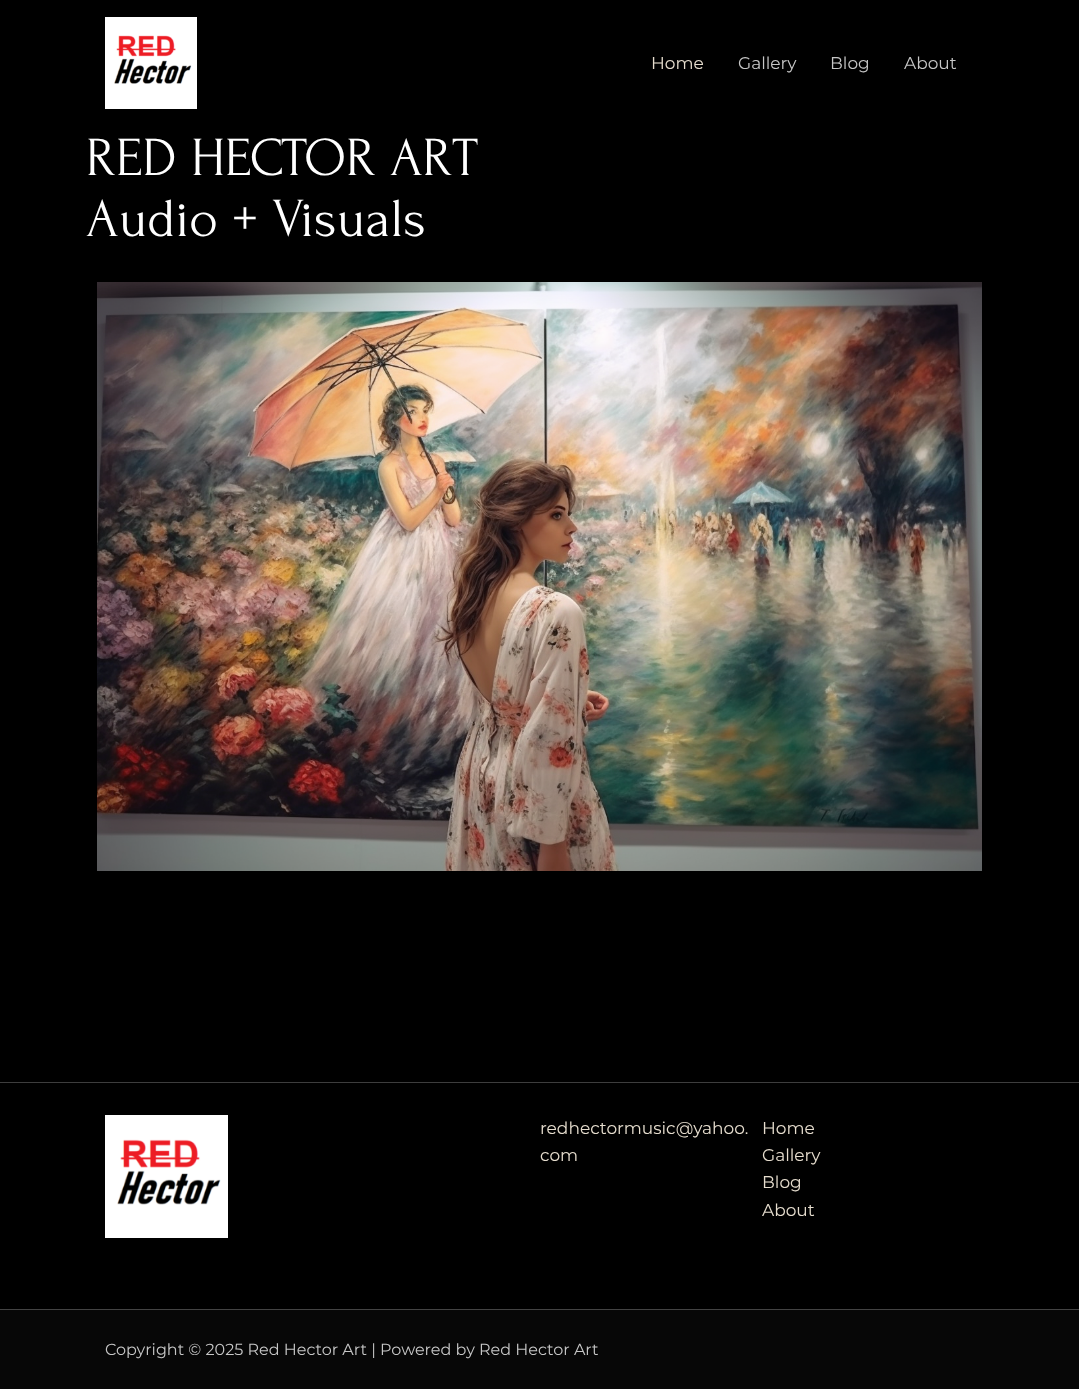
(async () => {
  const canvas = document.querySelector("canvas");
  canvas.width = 1079;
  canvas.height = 1389;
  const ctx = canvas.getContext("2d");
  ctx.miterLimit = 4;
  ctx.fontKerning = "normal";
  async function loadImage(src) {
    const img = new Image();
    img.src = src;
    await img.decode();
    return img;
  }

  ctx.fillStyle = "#000000";
  ctx.fillRect(0, 0, 1079, 1389);
  ctx.drawImage(await loadImage("img/1.png"), 105, 17, 92, 92);
  ctx.drawImage(await loadImage("img/2.png"), 97, 282, 885, 589);
  ctx.fillStyle = "#3d3d3d";
  ctx.fillRect(0, 1082, 1079, 1);
  ctx.drawImage(await loadImage("img/3.png"), 105, 1115, 123, 123);
  ctx.fillStyle = "#070707";
  ctx.fillRect(0, 1310, 1079, 79);
  ctx.fillStyle = "#434343";
  ctx.fillRect(0, 1309, 1079, 1);
  ctx.font = "100 17px Montserrat";
  ctx.fillStyle = "#e6ddce";
  ctx.fillText("Home", 651, 69);
  ctx.fillStyle = "#c6c6c6";
  for (const [text, x, y] of [
    ["Gallery", 738, 69],
    ["Blog", 830, 69],
    ["About", 904, 69],
  ]) {
    ctx.fillText(text, x, y);
  }
  ctx.font = "55px Forum";
  ctx.fillStyle = "#ffffff";
  ctx.fillText("RED HECTOR ART", 86, 175);
  ctx.fillText("Audio + Visuals", 86, 236);
  ctx.font = "100 17px Montserrat";
  ctx.fillStyle = "#e6ddce";
  for (const [text, x, y] of [
    ["redhectormusic@yahoo.", 540, 1134],
    ["com", 540, 1161],
    ["Home", 762, 1134],
    ["Gallery", 762, 1161],
    ["Blog", 762, 1188],
    ["About", 762, 1216],
  ]) {
    ctx.fillText(text, x, y);
  }
  ctx.font = "100 16px Montserrat";
  ctx.fillStyle = "#c6c6c6";
  ctx.fillText("Copyright © 2025 Red Hector Art | Powered by Red Hector Art", 105, 1355);
})();
